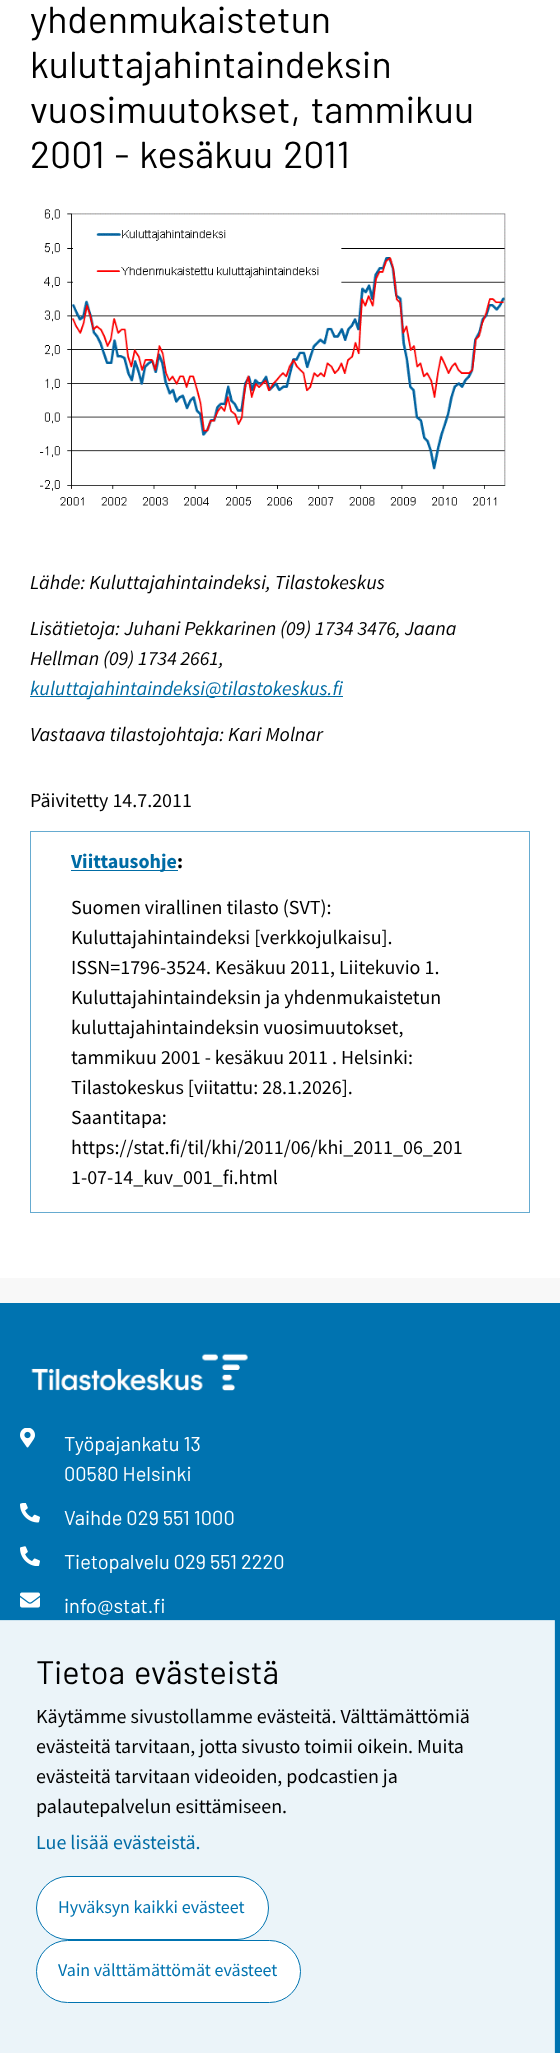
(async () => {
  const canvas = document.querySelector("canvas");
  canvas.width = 560;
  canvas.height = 2053;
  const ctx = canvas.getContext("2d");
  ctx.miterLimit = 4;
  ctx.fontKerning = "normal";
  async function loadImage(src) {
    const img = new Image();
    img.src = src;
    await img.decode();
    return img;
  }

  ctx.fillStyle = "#f8f8f8";
  ctx.fillRect(0, 0, 560, 2053);
  ctx.fillStyle = "#ffffff";
  ctx.fillRect(0, 0, 560, 1278);
  ctx.drawImage(await loadImage("img/1.png"), 40, 209, 466, 297);
  ctx.fillStyle = "#006ca5";
  ctx.fillRect(30, 696, 313, 1);
  ctx.strokeStyle = "#66abd0";
  ctx.strokeRect(30.5, 831.5, 499, 381);
  ctx.fillRect(71, 870, 107, 1);
  ctx.fillStyle = "#0073b0";
  ctx.fillRect(0, 1303, 560, 750);
  ctx.drawImage(await loadImage("img/2.png"), 31, 1353, 218, 38);
  ctx.drawImage(await loadImage("img/3.png"), 20, 1428, 15, 20);
  ctx.drawImage(await loadImage("img/4.png"), 20, 1503, 20, 20);
  ctx.drawImage(await loadImage("img/5.png"), 20, 1546, 20, 20);
  ctx.drawImage(await loadImage("img/6.png"), 20, 1592, 20, 16);
  ctx.fillStyle = "#ebf4f9";
  ctx.beginPath();
  ctx.rect(-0.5, 1620.5, 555, 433);
  ctx.fill();
  ctx.strokeStyle = "#cce3ef";
  ctx.stroke();
  ctx.fillStyle = "#ffffff";
  ctx.beginPath();
  ctx.roundRect(36.5, 1876.5, 232, 63, 31.5);
  ctx.fill();
  ctx.strokeStyle = "#0073b0";
  ctx.stroke();
  ctx.beginPath();
  ctx.roundRect(36.5, 1940.5, 264, 62, 31);
  ctx.fill();
  ctx.stroke();
  ctx.font = "37.5px Barlow";
  ctx.fillStyle = "#000000";
  ctx.fillText("yhdenmukaistetun", 30, 33);
  ctx.fillText("kuluttajahintaindeksin", 30, 78);
  ctx.wordSpacing = "2.5px";
  ctx.fillText("vuosimuutokset, tammikuu", 30, 123);
  ctx.fillText("2001 - kesäkuu 2011", 30, 168);
  ctx.wordSpacing = "0px";
  ctx.font = "italic 20px Source Sans Pro";
  for (const [text, x, y] of [
    ["Lähde: Kuluttajahintaindeksi, Tilastokeskus", 30, 589],
    ["Lisätietoja: Juhani Pekkarinen (09) 1734 3476, Jaana", 30, 635],
    ["Hellman (09) 1734 2661,", 30, 665],
  ]) {
    ctx.fillText(text, x, y);
  }
  ctx.fillStyle = "#006ca5";
  ctx.fillText("kuluttajahintaindeksi@tilastokeskus.fi", 30, 695);
  ctx.fillStyle = "#000000";
  ctx.fillText("Vastaava tilastojohtaja: Kari Molnar", 30, 741);
  ctx.font = "20px Source Sans Pro";
  ctx.fillText("Päivitetty 14.7.2011", 30, 807);
  ctx.font = "bold 20px Source Sans Pro";
  ctx.fillStyle = "#006ca5";
  ctx.fillText("Viittausohje", 71, 868);
  ctx.fillStyle = "#000000";
  ctx.fillText(":", 177, 868);
  ctx.font = "20px Source Sans Pro";
  for (const [text, x, y] of [
    ["Suomen virallinen tilasto (SVT):", 71, 914],
    ["Kuluttajahintaindeksi [verkkojulkaisu].", 71, 944],
    ["ISSN=1796-3524. Kesäkuu 2011, Liitekuvio 1.", 71, 974],
    ["Kuluttajahintaindeksin ja yhdenmukaistetun", 71, 1004],
    ["kuluttajahintaindeksin vuosimuutokset,", 71, 1034],
    ["tammikuu 2001 - kesäkuu 2011 . Helsinki:", 71, 1064],
    ["Tilastokeskus [viitattu: 28.1.2026].", 71, 1094],
    ["Saantitapa:", 71, 1124],
    ["https://stat.fi/til/khi/2011/06/khi_2011_06_201", 71, 1154],
    ["1-07-14_kuv_001_fi.html", 71, 1184],
  ]) {
    ctx.fillText(text, x, y);
  }
  ctx.font = "20px Barlow";
  ctx.fillStyle = "#ffffff";
  for (const [text, x, y] of [
    ["Työpajankatu 13", 64, 1451],
    ["00580 Helsinki", 64, 1481],
    ["Vaihde 029 551 1000", 64, 1525],
    ["Tietopalvelu 029 551 2220", 64, 1569],
    ["info@stat.fi", 64, 1613],
  ]) {
    ctx.fillText(text, x, y);
  }
  ctx.wordSpacing = "2.5px";
  ctx.font = "32.5px Barlow";
  ctx.fillStyle = "#000000";
  ctx.fillText("Tietoa evästeistä", 36, 1684);
  ctx.wordSpacing = "0px";
  ctx.font = "20px Source Sans Pro";
  for (const [text, x, y] of [
    ["Käytämme sivustollamme evästeitä. Välttämättömiä", 36, 1723],
    ["evästeitä tarvitaan, jotta sivusto toimii oikein. Muita", 36, 1753],
    ["evästeitä tarvitaan videoiden, podcastien ja", 36, 1783],
    ["palautepalvelun esittämiseen.", 36, 1813],
  ]) {
    ctx.fillText(text, x, y);
  }
  ctx.fillStyle = "#006ca5";
  ctx.fillText("Lue lisää evästeistä.", 36, 1849);
  ctx.font = "18px Source Sans Pro";
  ctx.fillStyle = "#0073b0";
  ctx.fillText("Hyväksyn kaikki evästeet", 58, 1913);
  ctx.fillText("Vain välttämättömät evästeet", 58, 1976);
})();
